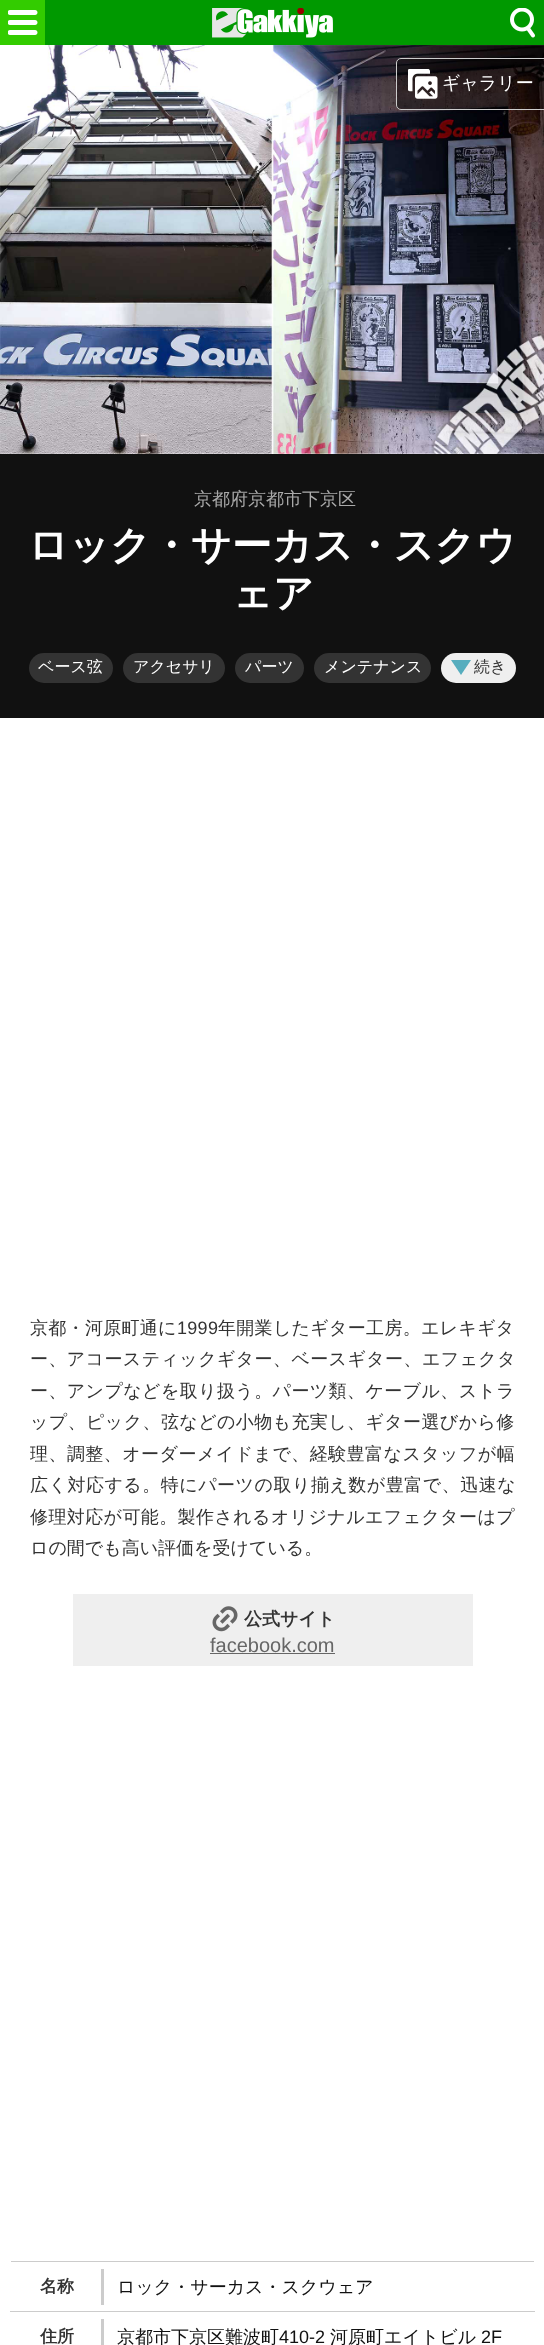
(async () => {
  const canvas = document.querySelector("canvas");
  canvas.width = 544;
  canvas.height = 2345;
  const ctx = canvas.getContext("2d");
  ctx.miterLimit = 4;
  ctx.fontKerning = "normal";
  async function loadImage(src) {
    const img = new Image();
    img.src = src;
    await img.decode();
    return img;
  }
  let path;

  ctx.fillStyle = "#ffffff";
  ctx.fillRect(0, 0, 544, 2345);
  ctx.fillStyle = "#009900";
  ctx.fillRect(45, 0, 499, 45);
  ctx.fillStyle = "#33cc00";
  ctx.fillRect(0, 0, 45, 45);
  ctx.drawImage(await loadImage("img/1.png"), 8, 10, 30, 25);
  ctx.drawImage(await loadImage("img/2.png"), 212, 8, 121, 30);
  ctx.drawImage(await loadImage("img/3.png"), 510, 8, 25, 30);
  ctx.drawImage(await loadImage("img/4.png"), 0, 45, 544, 409);
  ctx.fillStyle = "rgba(0, 0, 0, 0.4)";
  path = new Path2D("M401 58.5H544.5V109.5H401C398.5 109.5 396.5 107.5 396.5 105V63C396.5 60.5 398.5 58.5 401 58.5Z");
  ctx.fill(path);
  ctx.strokeStyle = "#cccccc";
  ctx.stroke(path);
  ctx.drawImage(await loadImage("img/5.png"), 408, 69, 30, 30);
  ctx.fillStyle = "#111111";
  ctx.fillRect(0, 454, 544, 264);
  ctx.fillStyle = "#333333";
  ctx.beginPath();
  ctx.roundRect(29, 653, 84, 30, 15);
  ctx.fill();
  ctx.beginPath();
  ctx.roundRect(123, 653, 102, 30, 15);
  ctx.fill();
  ctx.beginPath();
  ctx.roundRect(235, 653, 69, 30, 15);
  ctx.fill();
  ctx.beginPath();
  ctx.roundRect(314, 653, 117, 30, 15);
  ctx.fill();
  ctx.fillStyle = "#efefef";
  ctx.beginPath();
  ctx.roundRect(441, 653, 75, 30, 15);
  ctx.fill();
  ctx.fillStyle = "#56adbe";
  path = new Path2D("M461 675L471 660H451Z");
  ctx.fill(path);
  ctx.fillStyle = "#efefef";
  ctx.fillRect(73, 1594, 400, 72);
  ctx.drawImage(await loadImage("img/6.png"), 212, 1606, 26, 26);
  for (const [x, y, w, h, color] of [
    [210, 1653, 125, 1, "#666666"],
    [11, 2261, 523, 1, "#cccccc"],
    [101, 2269, 3, 36, "#cccccc"],
    [10, 2311, 525, 1, "#cccccc"],
    [101, 2319, 3, 26, "#cccccc"],
  ]) {
    ctx.fillStyle = color;
    ctx.fillRect(x, y, w, h);
  }
  ctx.font = "500 18px WenQuanYi Zen Hei";
  ctx.fillStyle = "#ffffff";
  ctx.fillText("ギャラリー", 442, 89);
  ctx.fillStyle = "#aaaaaa";
  ctx.fillText("京都府京都市下京区", 194, 505);
  ctx.font = "bold 40px WenQuanYi Zen Hei";
  ctx.fillStyle = "#ffffff";
  ctx.fillText("ロック・サーカス・スクウ", 28, 559);
  ctx.fillText("ェア", 232, 607);
  ctx.font = "500 16px WenQuanYi Zen Hei";
  for (const [text, x, y] of [
    ["ベース弦", 38, 672],
    ["アクセサリ", 133, 672],
    ["パーツ", 245, 672],
    ["メンテナンス", 324, 672],
  ]) {
    ctx.fillText(text, x, y);
  }
  ctx.fillStyle = "#333333";
  ctx.fillText("続き", 474, 672);
  ctx.letterSpacing = "0.3px";
  ctx.font = "500 18px WenQuanYi Zen Hei";
  ctx.fillText("京都・河原町通に", 30, 1334);
  ctx.font = "18px Liberation Sans";
  ctx.fillText("1999", 177, 1334);
  ctx.font = "500 18px WenQuanYi Zen Hei";
  ctx.fillText("年開業したギター工房。エレキギタ", 218, 1334);
  ctx.letterSpacing = "0.4px";
  for (const [text, x, y] of [
    ["ー、アコースティックギター、ベースギター、エフェクタ", 30, 1365],
    ["ー、アンプなどを取り扱う。パーツ類、ケーブル、ストラ", 30, 1397],
    ["ップ、ピック、弦などの小物も充実し、ギター選びから修", 30, 1428],
  ]) {
    ctx.fillText(text, x, y);
  }
  ctx.letterSpacing = "0.45px";
  ctx.fillText("理、調整、オーダーメイドまで、経験豊富なスタッフが幅", 30, 1460);
  ctx.letterSpacing = "0.5px";
  ctx.fillText("広く対応する。特にパーツの取り揃え数が豊富で、迅速な", 30, 1491);
  ctx.letterSpacing = "0.4px";
  ctx.fillText("修理対応が可能。製作されるオリジナルエフェクターはプ", 30, 1523);
  ctx.letterSpacing = "0px";
  ctx.fillText("ロの間でも高い評価を受けている。", 30, 1554);
  ctx.font = "bold 18px WenQuanYi Zen Hei";
  ctx.fillText("公式サイト", 244, 1625);
  ctx.font = "20px Liberation Sans";
  ctx.fillStyle = "#666666";
  ctx.fillText("facebook.com", 210, 1652);
  ctx.font = "bold 17px WenQuanYi Zen Hei";
  ctx.fillStyle = "#333333";
  ctx.fillText("名称", 40, 2292);
  ctx.font = "500 18px WenQuanYi Zen Hei";
  ctx.fillStyle = "#111111";
  ctx.fillText("ロック・サーカス・スクウェア", 117, 2293);
  ctx.font = "bold 17px WenQuanYi Zen Hei";
  ctx.fillStyle = "#333333";
  ctx.fillText("住所", 40, 2342);
  ctx.font = "500 18px WenQuanYi Zen Hei";
  ctx.fillStyle = "#111111";
  ctx.fillText("京都市下京区難波町", 117, 2343);
  ctx.font = "18px Liberation Sans";
  ctx.fillText("410-2", 279, 2343);
  ctx.font = "500 18px WenQuanYi Zen Hei";
  ctx.fillText("河原町エイトビル", 330, 2343);
  ctx.font = "18px Liberation Sans";
  ctx.fillText("2F", 481, 2343);
})();
